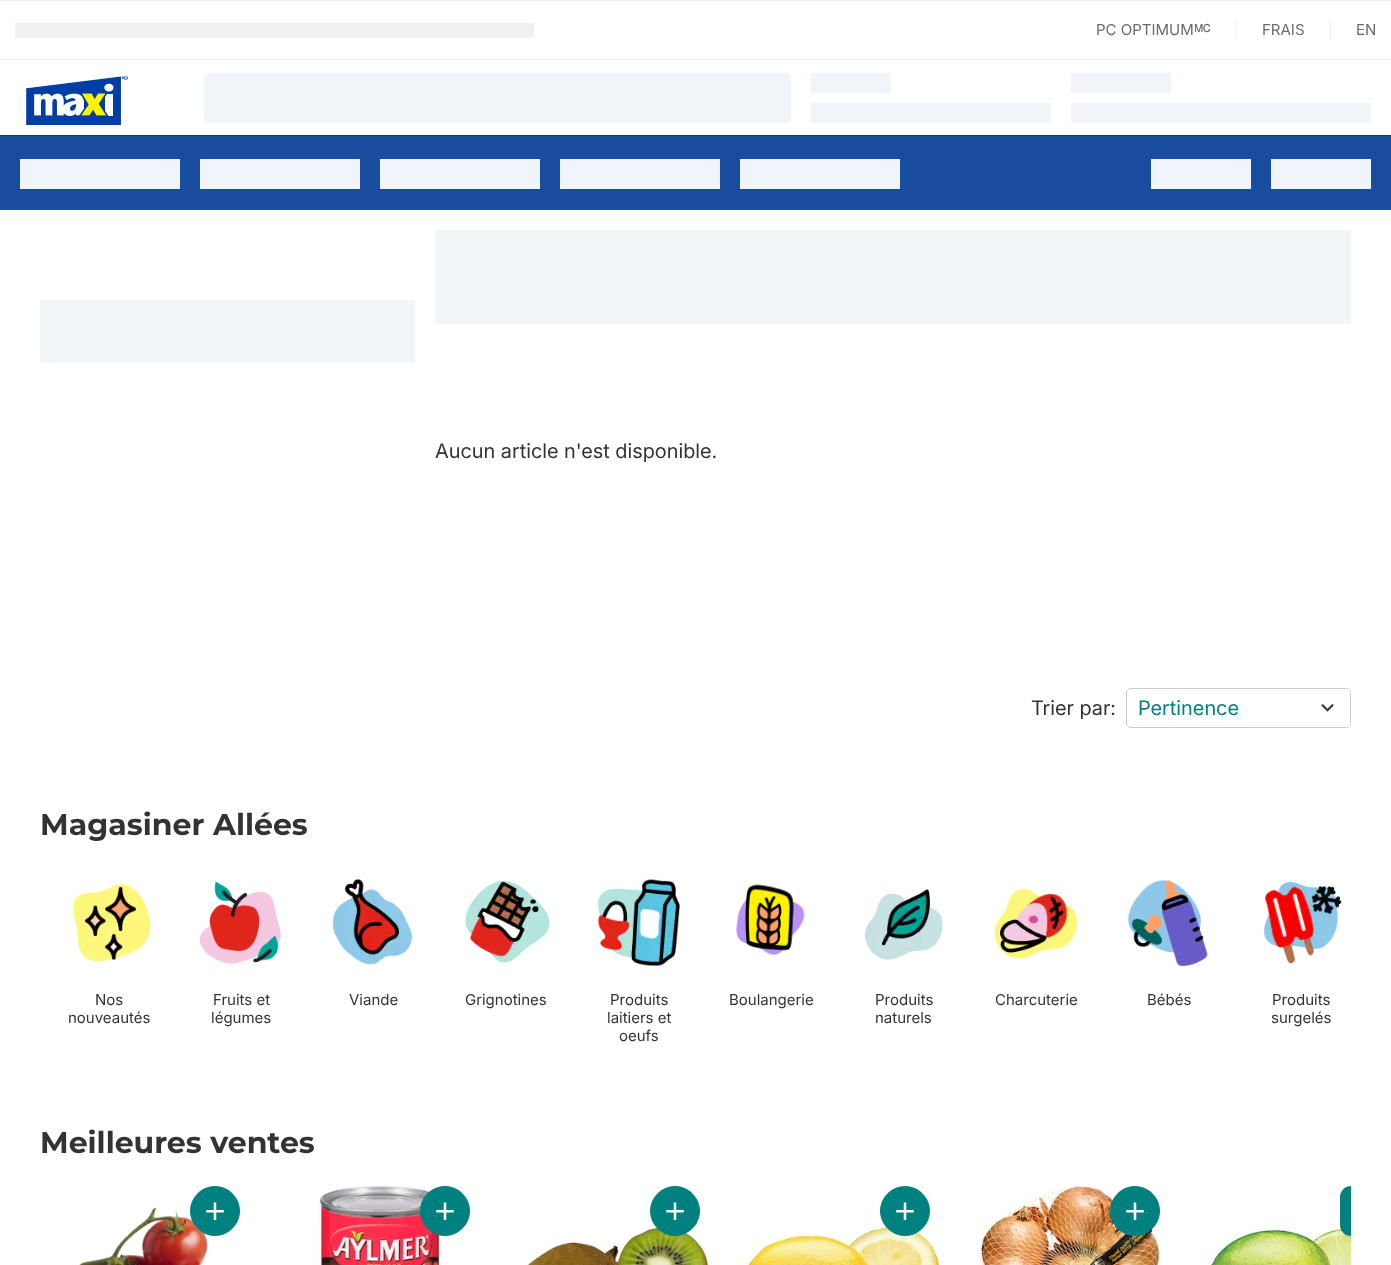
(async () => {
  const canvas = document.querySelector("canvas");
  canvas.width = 1391;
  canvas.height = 1265;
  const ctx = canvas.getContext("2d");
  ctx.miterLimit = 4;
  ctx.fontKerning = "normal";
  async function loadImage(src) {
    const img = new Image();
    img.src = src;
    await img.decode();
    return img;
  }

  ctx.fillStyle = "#ffffff";
  ctx.fillRect(0, 0, 1391, 1265);
  for (const [x, y, w, h, color] of [
    [0, 0, 1391, 1, "#f0f0f0"],
    [0, 59, 1391, 1, "#f0f0f0"],
    [15, 23, 519, 15, "#f0f0f0"],
    [1236, 20, 1, 20, "#f0f0f0"],
    [1330, 20, 1, 20, "#f0f0f0"],
  ]) {
    ctx.fillStyle = color;
    ctx.fillRect(x, y, w, h);
  }
  ctx.drawImage(await loadImage("img/1.png"), 26, 76, 102, 49);
  ctx.fillStyle = "#f1f5f9";
  ctx.beginPath();
  ctx.roundRect(204, 73, 587, 50, 5);
  ctx.fill();
  for (const [x, y, w, h, color] of [
    [811, 73, 80, 20, "#f1f5f9"],
    [811, 103, 240, 20, "#f1f5f9"],
    [1071, 73, 100, 20, "#f1f5f9"],
    [1071, 103, 300, 20, "#f1f5f9"],
    [0, 136, 1391, 74, "#194b9f"],
    [0, 135, 1391, 1, "#333333"],
    [20, 159, 160, 30, "#f1f5f9"],
    [200, 159, 160, 30, "#f1f5f9"],
    [380, 159, 160, 30, "#f1f5f9"],
    [560, 159, 160, 30, "#f1f5f9"],
    [740, 159, 160, 30, "#f1f5f9"],
    [1151, 159, 100, 30, "#f1f5f9"],
    [1271, 159, 100, 30, "#f1f5f9"],
  ]) {
    ctx.fillStyle = color;
    ctx.fillRect(x, y, w, h);
  }
  ctx.fillStyle = "#f2f6f9";
  ctx.beginPath();
  ctx.roundRect(40, 300, 375, 63, 2.5);
  ctx.fill();
  ctx.beginPath();
  ctx.roundRect(435, 230, 916, 94, 2.5);
  ctx.fill();
  ctx.beginPath();
  ctx.roundRect(1126.5, 688.5, 224, 39, 4.5);
  ctx.strokeStyle = "#cccccc";
  ctx.stroke();
  ctx.drawImage(await loadImage("img/2.png"), 1321, 704, 13, 8);
  ctx.drawImage(await loadImage("img/3.png"), 72, 883, 79, 79);
  ctx.drawImage(await loadImage("img/4.png"), 199, 881, 82, 83);
  ctx.drawImage(await loadImage("img/5.png"), 332, 879, 81, 86);
  ctx.drawImage(await loadImage("img/6.png"), 465, 880, 85, 83);
  ctx.drawImage(await loadImage("img/7.png"), 597, 879, 83, 87);
  ctx.drawImage(await loadImage("img/8.png"), 736, 884, 69, 71);
  ctx.drawImage(await loadImage("img/9.png"), 865, 889, 78, 71);
  ctx.drawImage(await loadImage("img/10.png"), 994, 888, 84, 71);
  ctx.drawImage(await loadImage("img/11.png"), 1128, 880, 80, 87);
  ctx.drawImage(await loadImage("img/12.png"), 1264, 882, 78, 82);
  ctx.drawImage(await loadImage("img/13.png"), 79, 1207, 129, 58);
  ctx.fillStyle = "#00817f";
  ctx.beginPath();
  ctx.arc(215, 1211, 24.5, 0, Math.PI * 2);
  ctx.fill();
  ctx.strokeStyle = "#00817f";
  ctx.stroke();
  ctx.drawImage(await loadImage("img/14.png"), 206, 1202, 18, 18);
  ctx.drawImage(await loadImage("img/15.png"), 318, 1186, 123, 79);
  ctx.beginPath();
  ctx.arc(445, 1211, 24.5, 0, Math.PI * 2);
  ctx.fill();
  ctx.stroke();
  ctx.drawImage(await loadImage("img/14.png"), 436, 1202, 18, 18);
  ctx.drawImage(await loadImage("img/16.png"), 527, 1226, 182, 39);
  ctx.beginPath();
  ctx.arc(675, 1211, 24.5, 0, Math.PI * 2);
  ctx.fill();
  ctx.stroke();
  ctx.drawImage(await loadImage("img/14.png"), 666, 1202, 18, 18);
  ctx.drawImage(await loadImage("img/17.png"), 747, 1225, 193, 40);
  ctx.beginPath();
  ctx.arc(905, 1211, 24.5, 0, Math.PI * 2);
  ctx.fill();
  ctx.stroke();
  ctx.drawImage(await loadImage("img/14.png"), 896, 1202, 18, 18);
  ctx.drawImage(await loadImage("img/18.png"), 976, 1186, 186, 79);
  ctx.beginPath();
  ctx.arc(1135, 1211, 24.5, 0, Math.PI * 2);
  ctx.fill();
  ctx.stroke();
  ctx.drawImage(await loadImage("img/14.png"), 1126, 1202, 18, 18);
  ctx.drawImage(await loadImage("img/19.png"), 1210, 1226, 142, 39);
  ctx.beginPath();
  ctx.roundRect(1340, 1186, 11, 50, [25, 0, 0, 25]);
  ctx.fill();
  ctx.save();
  ctx.beginPath();
  ctx.rect(40, 1176, 1311, 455);
  ctx.clip();
  ctx.beginPath();
  ctx.arc(1365, 1211, 24.5, 0, Math.PI * 2);
  ctx.stroke();
  ctx.restore();
  ctx.font = "15px Inter";
  ctx.fillStyle = "#666b73";
  ctx.fillText("PC OPTIMUM", 1096, 35);
  ctx.font = "15px FreeSans";
  ctx.fillText("🅪", 1194, 35);
  ctx.font = "15px Inter";
  ctx.fillText("FRAIS", 1262, 35);
  ctx.fillText("EN", 1356, 35);
  ctx.font = "20px 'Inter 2'";
  ctx.fillStyle = "#333333";
  ctx.fillText("Aucun article n'est disponible.", 435, 458);
  ctx.fillText("Trier par:", 1031, 715);
  ctx.fillStyle = "#00817f";
  ctx.fillText("Pertinence", 1138, 715);
  ctx.font = "bold 30px Montserrat";
  ctx.fillStyle = "#333333";
  ctx.fillText("Magasiner Allées", 40, 835);
  ctx.font = "15px Inter";
  for (const [text, x, y] of [
    ["Nos", 95, 1005],
    ["nouveautés", 68, 1023],
    ["Fruits et", 213, 1005],
    ["légumes", 211, 1023],
    ["Viande", 349, 1005],
    ["Grignotines", 465, 1005],
    ["Produits", 610, 1005],
    ["laitiers et", 607, 1023],
    ["oeufs", 619, 1041],
    ["Boulangerie", 729, 1005],
    ["Produits", 875, 1005],
    ["naturels", 875, 1023],
    ["Charcuterie", 995, 1005],
    ["Bébés", 1147, 1005],
    ["Produits", 1272, 1005],
    ["surgelés", 1271, 1023],
  ]) {
    ctx.fillText(text, x, y);
  }
  ctx.font = "bold 30px Montserrat";
  ctx.fillText("Meilleures ventes", 40, 1153);
})();
